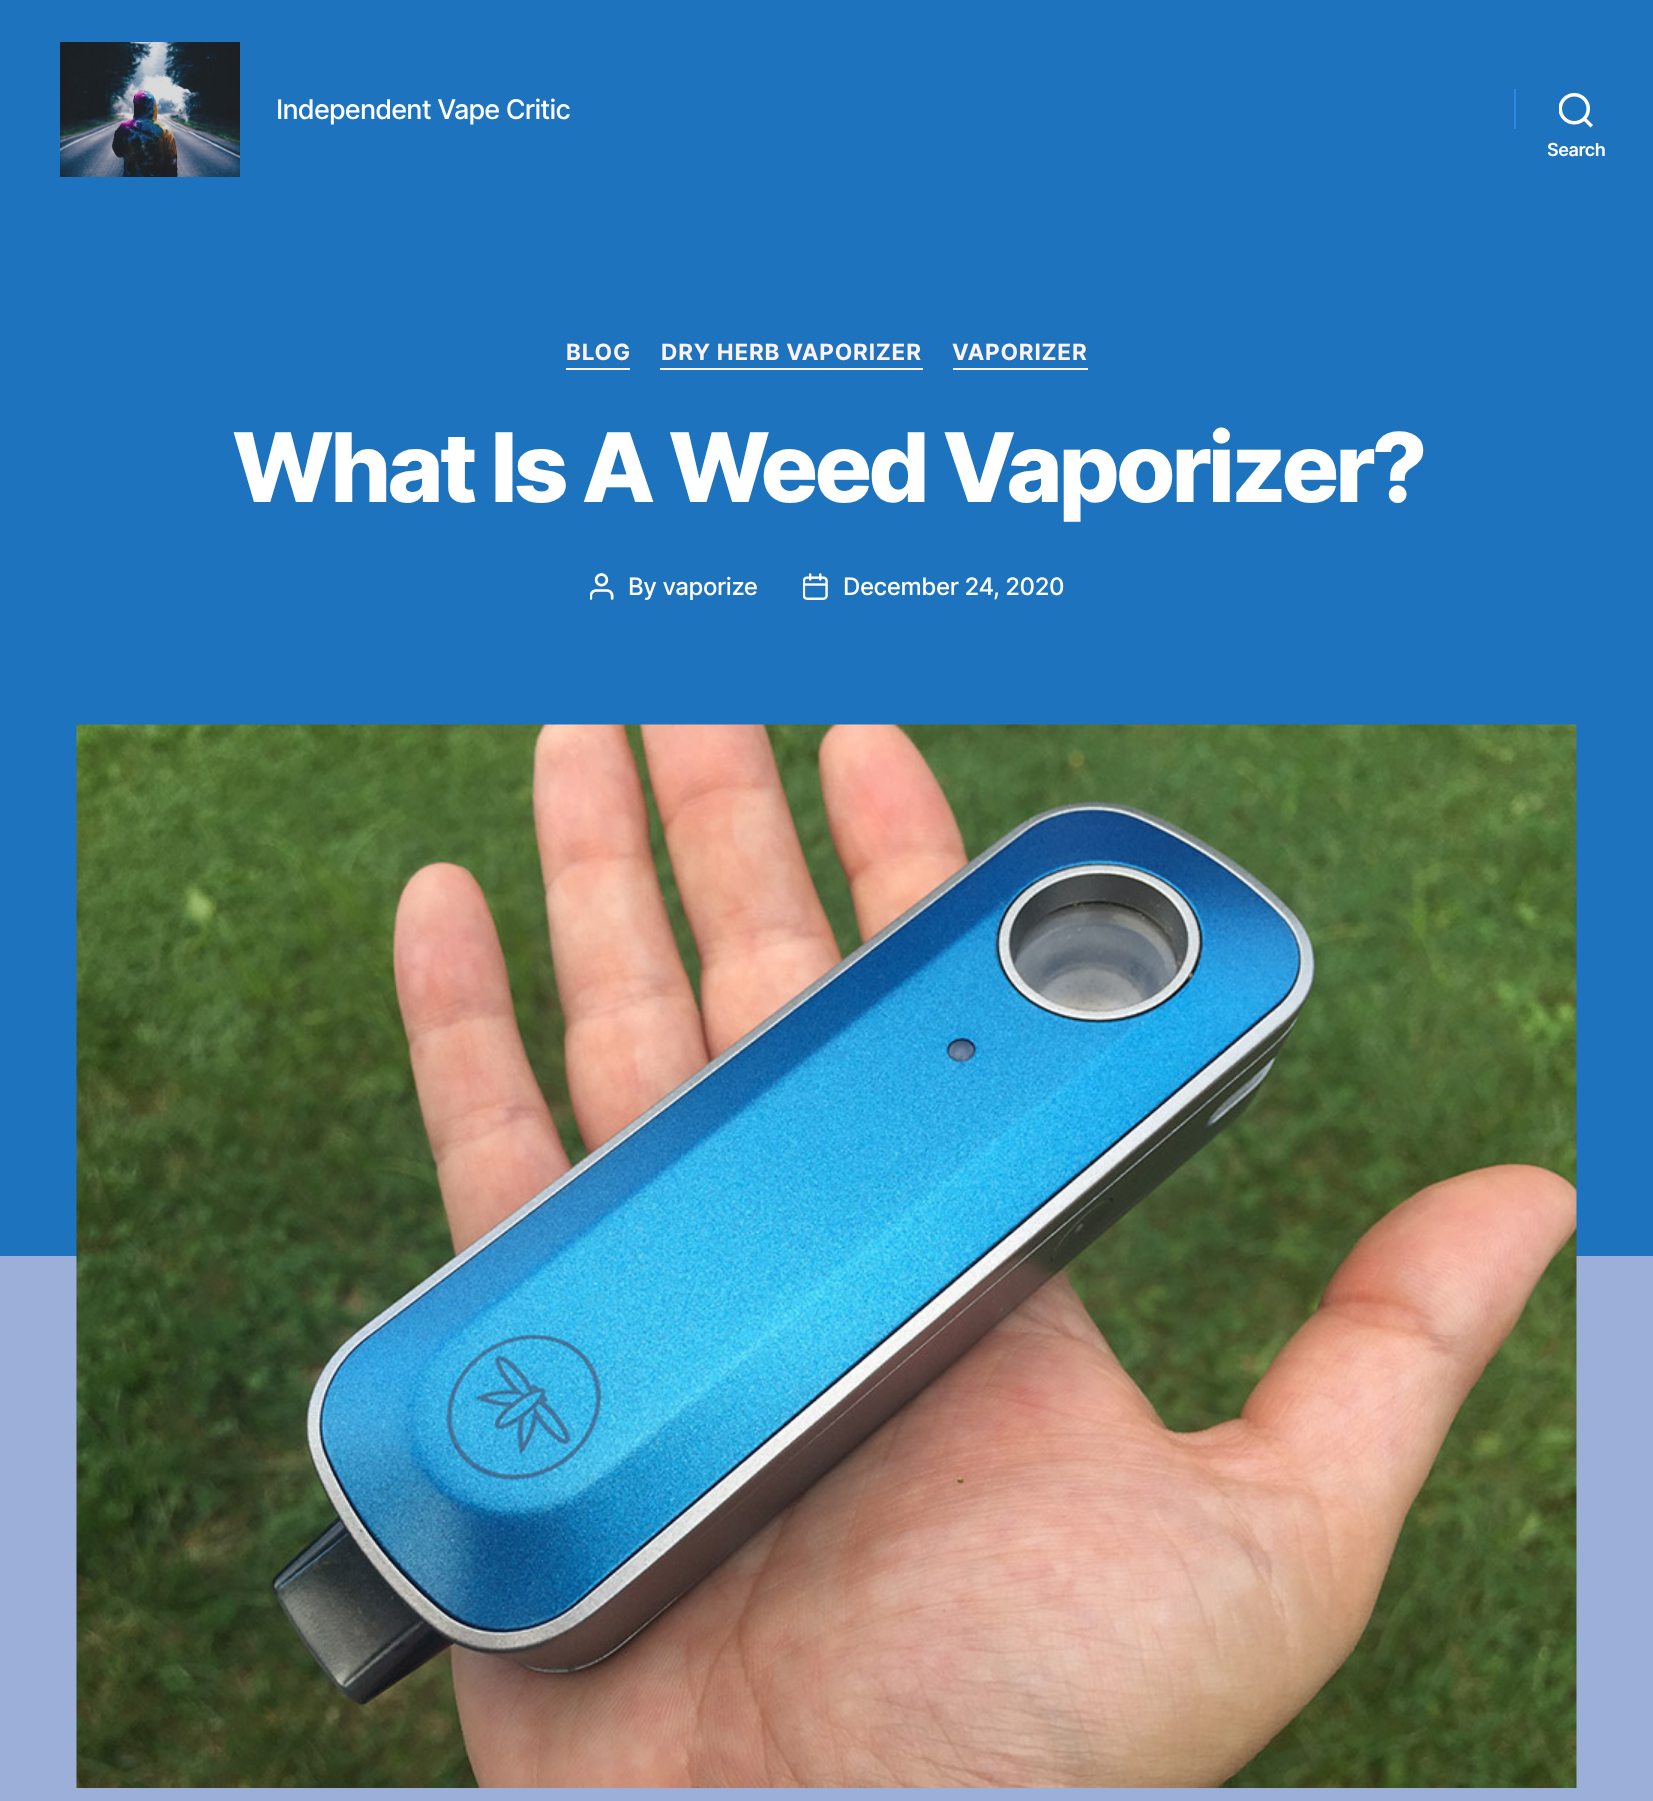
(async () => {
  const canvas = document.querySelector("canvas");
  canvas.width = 1653;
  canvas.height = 1801;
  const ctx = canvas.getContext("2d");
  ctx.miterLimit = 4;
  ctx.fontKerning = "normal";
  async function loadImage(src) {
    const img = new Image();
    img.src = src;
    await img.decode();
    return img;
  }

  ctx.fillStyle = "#9cafd8";
  ctx.fillRect(0, 0, 1653, 1801);
  ctx.fillStyle = "#1e73be";
  ctx.fillRect(0, 0, 1653, 1256);
  ctx.drawImage(await loadImage("img/1.png"), 60, 42, 180, 135);
  ctx.fillStyle = "#2a8adf";
  ctx.fillRect(1514, 89, 2, 40);
  ctx.drawImage(await loadImage("img/2.png"), 1559, 93, 34, 35);
  for (const [x, y, w, h, color] of [
    [566, 368, 64, 2, "#fcf2f4"],
    [660, 368, 263, 2, "#fcf2f4"],
    [953, 368, 135, 2, "#fcf2f4"],
  ]) {
    ctx.fillStyle = color;
    ctx.fillRect(x, y, w, h);
  }
  ctx.drawImage(await loadImage("img/3.png"), 590, 573, 24, 27);
  ctx.drawImage(await loadImage("img/4.png"), 803, 573, 25, 27);
  ctx.drawImage(await loadImage("img/5.png"), 76, 724, 1501, 1064);
  ctx.letterSpacing = "-0.8px";
  ctx.font = "500 27px Inter";
  ctx.fillStyle = "#ffffff";
  ctx.fillText("Independent Vape Critic", 276, 119);
  ctx.letterSpacing = "-0.4px";
  ctx.font = "600 18px Inter";
  ctx.fillText("Search", 1547, 156);
  ctx.letterSpacing = "0.8px";
  ctx.font = "bold 22.5px Inter";
  ctx.fillStyle = "#fcf2f4";
  for (const [text, x, y] of [
    ["BLOG", 566, 360],
    ["DRY HERB VAPORIZER", 661, 360],
    ["VAPORIZER", 952, 360],
  ]) {
    ctx.fillText(text, x, y);
  }
  ctx.letterSpacing = "-4px";
  ctx.font = "800 96px Inter";
  ctx.fillStyle = "#ffffff";
  ctx.fillText("What Is A Weed Vaporizer?", 232, 502);
  ctx.letterSpacing = "-0.4px";
  ctx.font = "500 24px Inter";
  ctx.fillText("By vaporize", 628, 595);
  ctx.fillText("December 24, 2020", 843, 595);
})();
